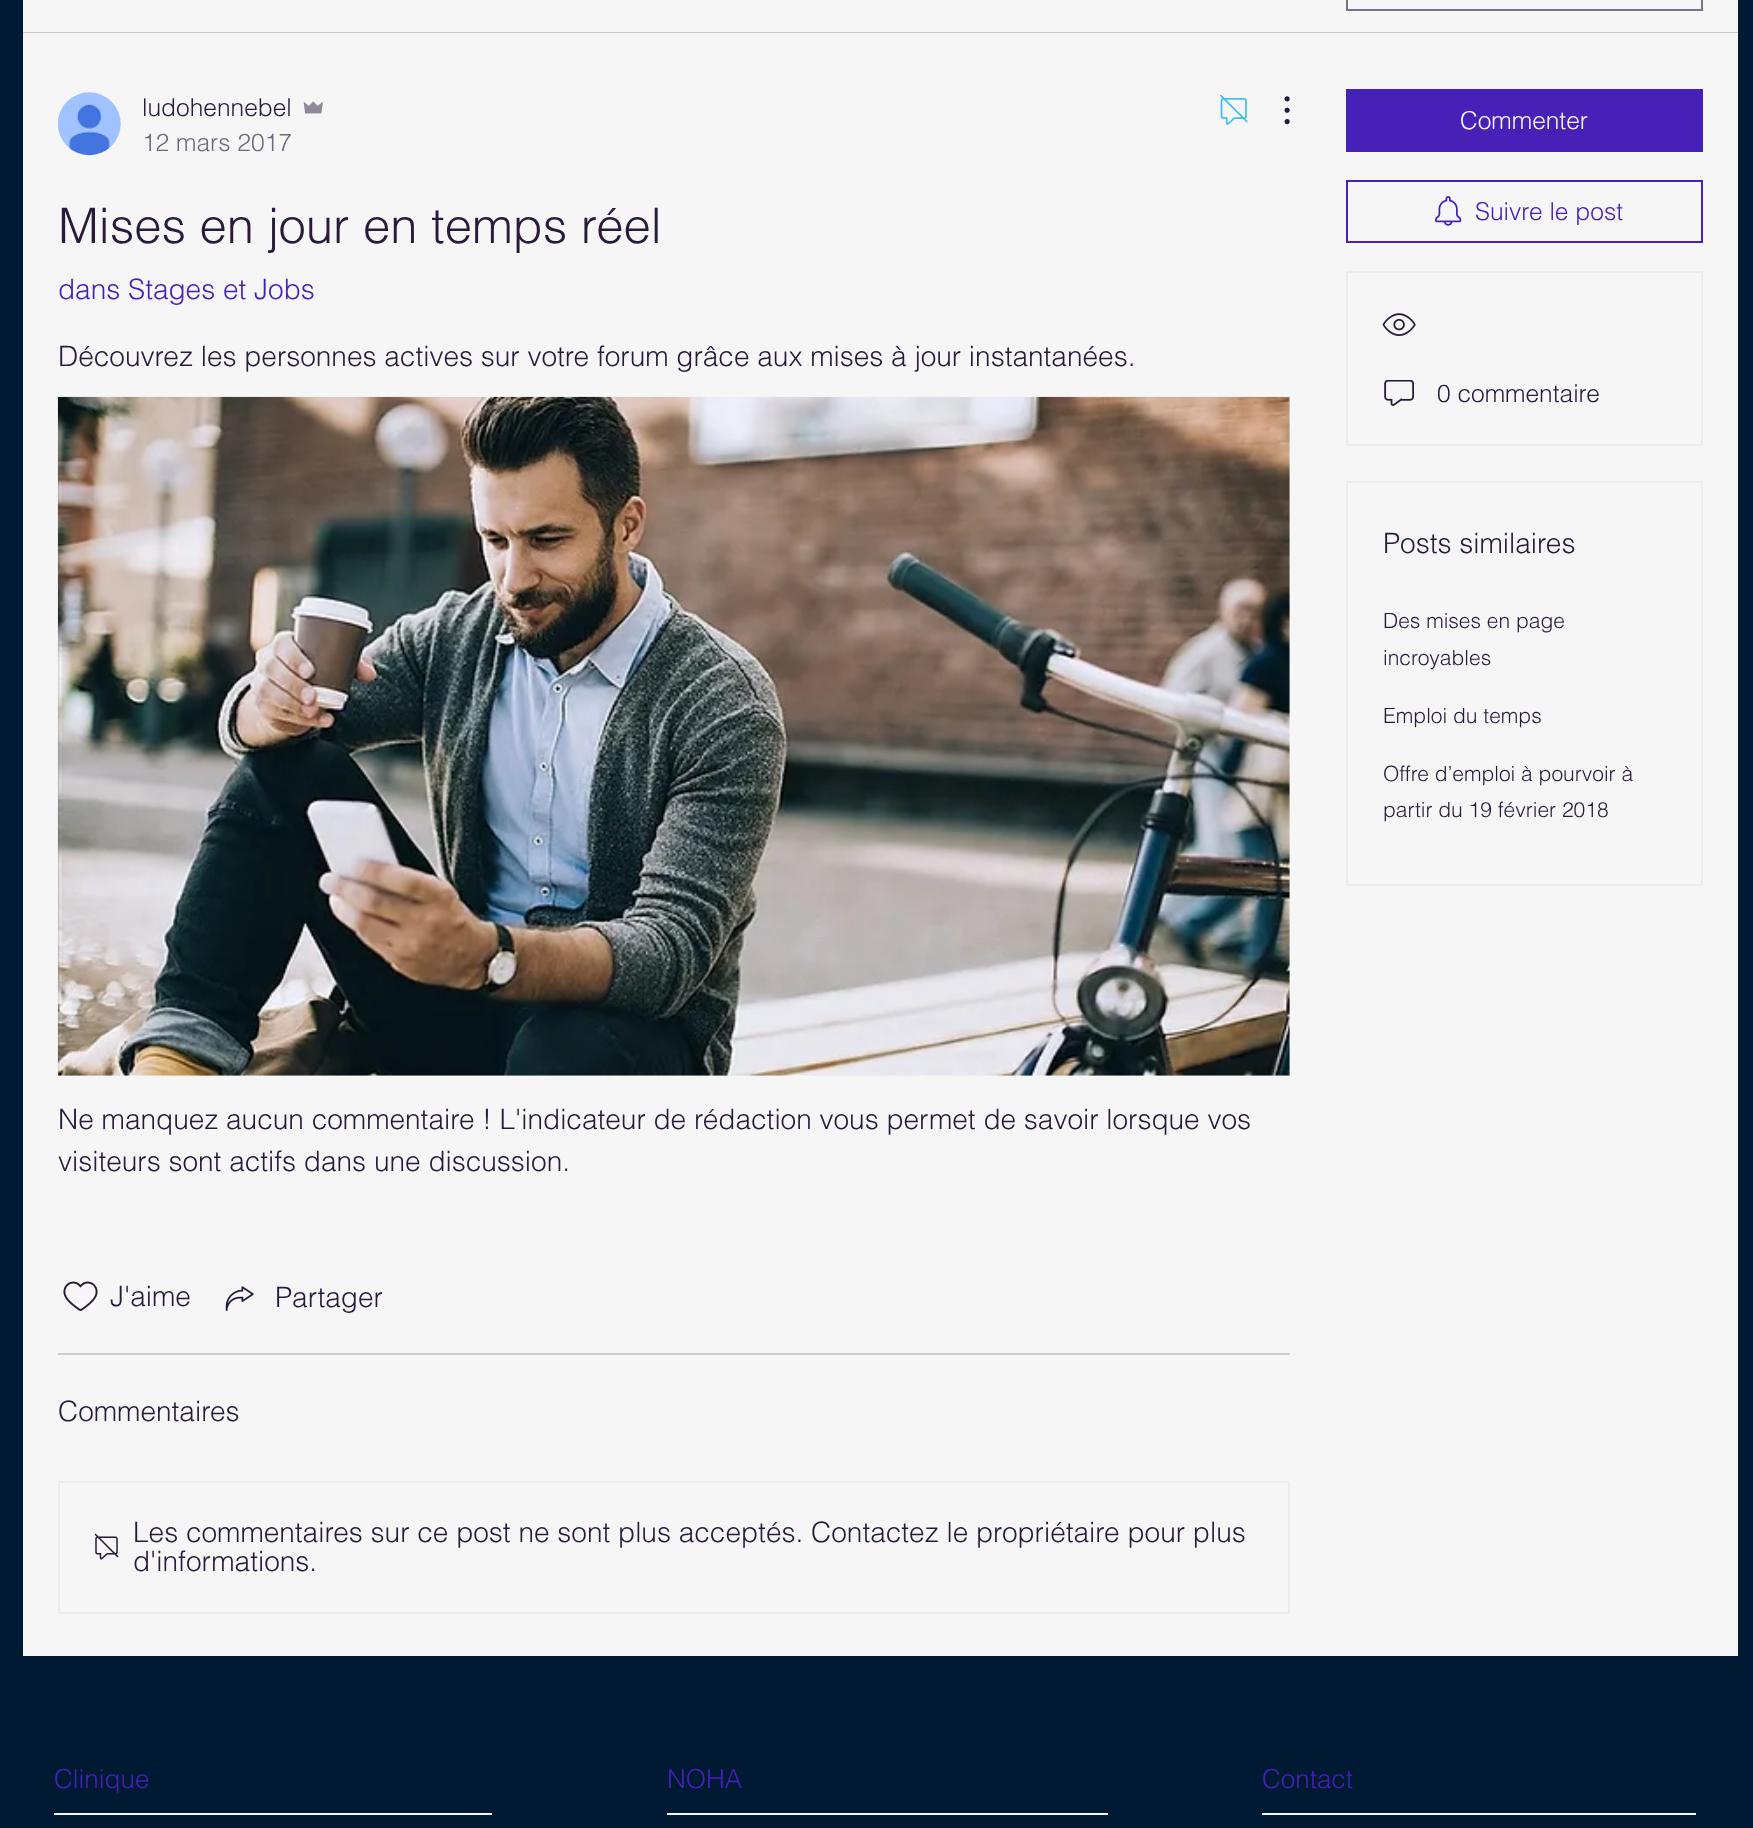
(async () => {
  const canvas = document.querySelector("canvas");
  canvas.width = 1753;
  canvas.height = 1828;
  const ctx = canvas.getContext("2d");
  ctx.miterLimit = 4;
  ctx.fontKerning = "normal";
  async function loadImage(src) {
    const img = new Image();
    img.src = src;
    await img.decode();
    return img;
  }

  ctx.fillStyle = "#001a33";
  ctx.fillRect(0, 0, 1753, 1828);
  ctx.fillStyle = "#f6f6f6";
  ctx.fillRect(23, 0, 1715, 32);
  ctx.fillStyle = "#cdcad0";
  ctx.fillRect(23, 32, 1715, 1);
  ctx.strokeStyle = "#7a7285";
  ctx.lineWidth = 2;
  ctx.strokeRect(1347, -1, 355, 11);
  ctx.fillStyle = "#f6f6f6";
  ctx.fillRect(23, 33, 1715, 1623);
  ctx.drawImage(await loadImage("img/1.png"), 57, 92, 64, 64);
  ctx.drawImage(await loadImage("img/2.png"), 303, 101, 20, 13);
  ctx.drawImage(await loadImage("img/3.png"), 1220, 95, 28, 30);
  ctx.drawImage(await loadImage("img/4.png"), 1284, 96, 6, 29);
  ctx.drawImage(await loadImage("img/5.png"), 57, 396, 1233, 680);
  ctx.drawImage(await loadImage("img/6.png"), 63, 1281, 35, 30);
  ctx.drawImage(await loadImage("img/7.png"), 225, 1286, 29, 25);
  ctx.fillStyle = "#cdcad0";
  ctx.fillRect(58, 1353, 1232, 2);
  ctx.strokeStyle = "#ececec";
  ctx.strokeRect(59, 1482, 1230, 131);
  ctx.drawImage(await loadImage("img/8.png"), 95, 1533, 24, 27);
  ctx.fillStyle = "#4720b7";
  ctx.fillRect(1346, 89, 357, 63);
  ctx.strokeStyle = "#4720b7";
  ctx.strokeRect(1347, 181, 355, 61);
  ctx.drawImage(await loadImage("img/9.png"), 1435, 196, 27, 30);
  ctx.strokeStyle = "#ececec";
  ctx.strokeRect(1347, 272, 355, 173);
  ctx.drawImage(await loadImage("img/10.png"), 1382, 313, 34, 23);
  ctx.drawImage(await loadImage("img/11.png"), 1384, 380, 30, 26);
  ctx.strokeRect(1347, 482, 355, 403);
  for (const [x, y, w, h, color] of [
    [54, 1813, 438, 2, "#f6f6f6"],
    [667, 1813, 441, 2, "#f6f6f6"],
    [1262, 1813, 434, 2, "#f6f6f6"],
  ]) {
    ctx.fillStyle = color;
    ctx.fillRect(x, y, w, h);
  }
  ctx.font = "300 24.5px helvetica";
  ctx.fillStyle = "#281a39";
  ctx.fillText("ludohennebel", 142, 116);
  ctx.fillStyle = "#72697d";
  ctx.fillText("12 mars 2017", 142, 151);
  ctx.font = "300 49px helvetica";
  ctx.fillStyle = "#281a39";
  ctx.fillText("Mises en jour en temps réel", 58, 243);
  ctx.font = "300 28px helvetica";
  ctx.fillStyle = "#4720b7";
  ctx.fillText("dans Stages et Jobs", 58, 299);
  ctx.fillStyle = "#281a39";
  for (const [text, x, y] of [
    ["Découvrez les personnes actives sur votre forum grâce aux mises à jour instantanées.", 58, 366],
    ["Ne manquez aucun commentaire ! L'indicateur de rédaction vous permet de savoir lorsque vos", 58, 1129],
    ["visiteurs sont actifs dans une discussion.", 58, 1171],
    ["J'aime", 110, 1306],
    ["Partager", 275, 1307],
    ["Commentaires", 58, 1421],
    ["Les commentaires sur ce post ne sont plus acceptés. Contactez le propriétaire pour plus", 133, 1542],
    ["d'informations.", 133, 1571],
  ]) {
    ctx.fillText(text, x, y);
  }
  ctx.font = "300 24.5px helvetica";
  ctx.fillStyle = "#f6f6f6";
  ctx.fillText("Commenter", 1460, 129);
  ctx.fillStyle = "#4720b7";
  ctx.fillText("Suivre le post", 1475, 220);
  ctx.fillStyle = "#281a39";
  ctx.fillText("0 commentaire", 1437, 402);
  ctx.font = "300 28px helvetica";
  ctx.fillText("Posts similaires", 1383, 553);
  ctx.font = "300 21px helvetica";
  for (const [text, x, y] of [
    ["Des mises en page", 1383, 628],
    ["incroyables", 1383, 665],
    ["Emploi du temps", 1383, 723],
    ["Offre d’emploi à pourvoir à", 1383, 781],
    ["partir du 19 février 2018", 1383, 817],
  ]) {
    ctx.fillText(text, x, y);
  }
  ctx.font = "300 26px helvetica";
  ctx.fillStyle = "#4720b7";
  for (const [text, x, y] of [
    ["Clinique", 54, 1788],
    ["NOHA", 667, 1788],
    ["Contact", 1262, 1788],
  ]) {
    ctx.fillText(text, x, y);
  }
})();
